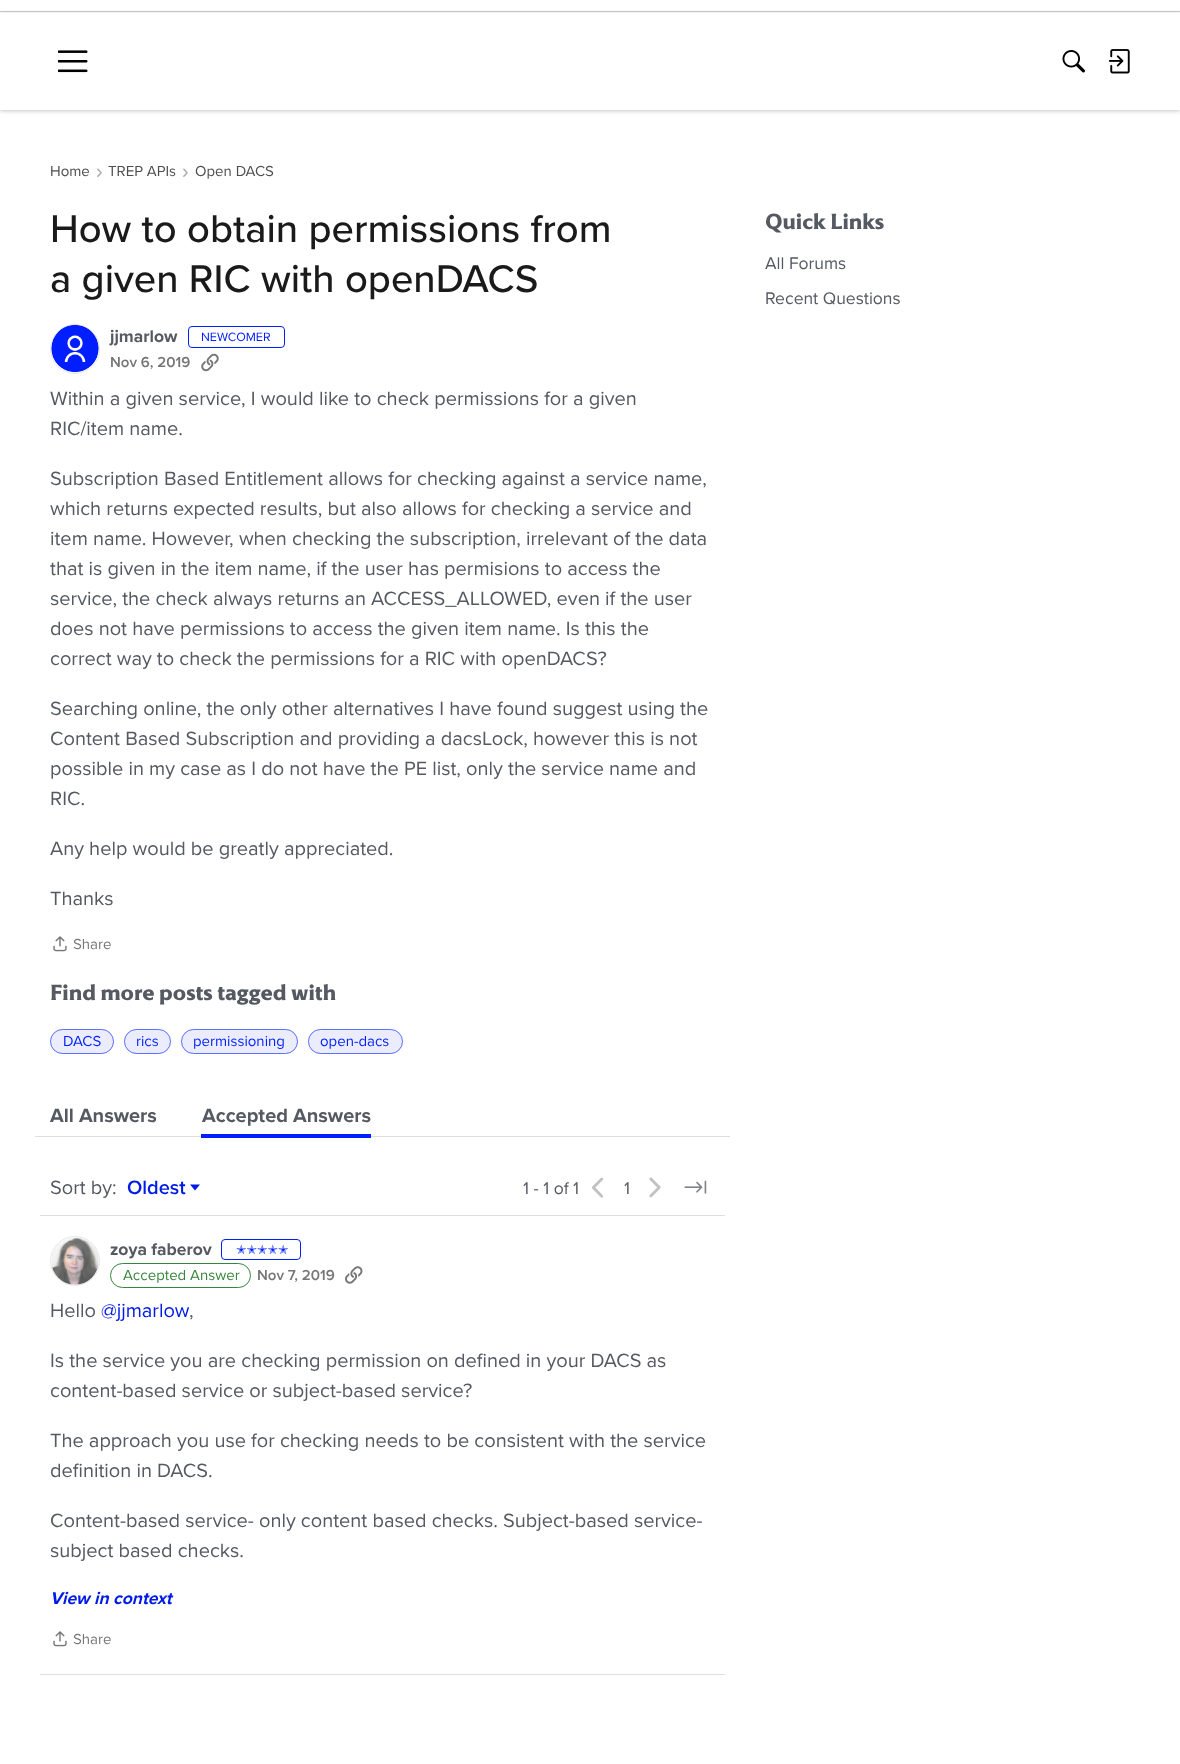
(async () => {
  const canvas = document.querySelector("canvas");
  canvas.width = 1180;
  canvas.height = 1764;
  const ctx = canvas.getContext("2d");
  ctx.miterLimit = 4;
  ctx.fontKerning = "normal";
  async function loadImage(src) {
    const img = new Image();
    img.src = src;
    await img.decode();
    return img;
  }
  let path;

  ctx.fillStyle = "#ffffff";
  ctx.fillRect(0, 0, 1180, 1764);
  ctx.fillStyle = "#cccccc";
  ctx.fillRect(0, 11, 1180, 1);
  ctx.save();
  path = new Path2D("M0 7H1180V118H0ZM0 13H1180V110H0Z");
  ctx.clip(path, "evenodd");
  ctx.fillStyle = "rgba(0, 0, 0, 0.22)";
  ctx.filter = "blur(2px)";
  ctx.beginPath();
  ctx.rect(0, 14, 1180, 97);
  ctx.fill();
  ctx.filter = "none";
  ctx.restore();
  ctx.drawImage(await loadImage("img/1.png"), 58, 50, 30, 23);
  ctx.drawImage(await loadImage("img/2.png"), 1062, 50, 23, 23);
  ctx.drawImage(await loadImage("img/3.png"), 1108, 49, 22, 25);
  ctx.beginPath();
  ctx.arc(75, 349, 24.5, 0, Math.PI * 2);
  ctx.strokeStyle = "#e6e6e8";
  ctx.stroke();
  ctx.drawImage(await loadImage("img/4.png"), 51, 324, 48, 49);
  ctx.beginPath();
  ctx.roundRect(188.5, 326.5, 96, 21, 3.5);
  ctx.strokeStyle = "#001eff";
  ctx.stroke();
  ctx.drawImage(await loadImage("img/5.png"), 201, 353, 18, 19);
  ctx.drawImage(await loadImage("img/6.png"), 53, 936, 14, 16);
  ctx.fillStyle = "#ebedff";
  ctx.beginPath();
  ctx.roundRect(50, 1029, 64, 25, 12.5);
  ctx.fill();
  ctx.beginPath();
  ctx.roundRect(50.5, 1029.5, 63, 24, 12);
  ctx.strokeStyle = "rgba(0, 30, 255, 0.6)";
  ctx.stroke();
  ctx.beginPath();
  ctx.roundRect(124, 1029, 47, 25, 12.5);
  ctx.fill();
  ctx.beginPath();
  ctx.roundRect(124.5, 1029.5, 46, 24, 12);
  ctx.stroke();
  ctx.beginPath();
  ctx.roundRect(181, 1029, 117, 25, 12.5);
  ctx.fill();
  ctx.beginPath();
  ctx.roundRect(181.5, 1029.5, 116, 24, 12);
  ctx.stroke();
  ctx.beginPath();
  ctx.roundRect(308, 1029, 95, 25, 12.5);
  ctx.fill();
  ctx.beginPath();
  ctx.roundRect(308.5, 1029.5, 94, 24, 12);
  ctx.stroke();
  ctx.fillStyle = "#dddee0";
  ctx.fillRect(35, 1136, 695, 1);
  ctx.fillStyle = "#001eff";
  ctx.fillRect(201, 1134, 170, 4);
  ctx.fillStyle = "#001be6";
  path = new Path2D("M190 1184.5H200L195 1190.5Z");
  ctx.fill(path);
  ctx.drawImage(await loadImage("img/7.png"), 591, 1177, 13, 21);
  ctx.drawImage(await loadImage("img/8.png"), 649, 1177, 12, 21);
  ctx.drawImage(await loadImage("img/9.png"), 684, 1180, 23, 14);
  ctx.fillStyle = "#dddee0";
  ctx.fillRect(40, 1215, 685, 1);
  ctx.beginPath();
  ctx.arc(75, 1261, 24.5, 0, Math.PI * 2);
  ctx.strokeStyle = "#e6e6e8";
  ctx.stroke();
  ctx.drawImage(await loadImage("img/10.png"), 51, 1237, 48, 48);
  ctx.beginPath();
  ctx.roundRect(221.5, 1239.5, 79, 20, 3.5);
  ctx.strokeStyle = "#001eff";
  ctx.stroke();
  ctx.beginPath();
  ctx.roundRect(110.5, 1263.5, 140, 24, 12);
  ctx.strokeStyle = "#38853d";
  ctx.stroke();
  ctx.drawImage(await loadImage("img/11.png"), 345, 1266, 18, 18);
  ctx.drawImage(await loadImage("img/6.png"), 53, 1631, 14, 16);
  ctx.fillRect(40, 1674, 685, 1);
  ctx.font = "15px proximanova";
  ctx.fillStyle = "#4d4d4d";
  ctx.fillText("Home", 50, 176);
  ctx.font = "20px Liberation Sans";
  ctx.fillStyle = "#aaadb1";
  ctx.fillText("›", 96, 178);
  ctx.font = "15px proximanova";
  ctx.fillStyle = "#4d4d4d";
  ctx.fillText("TREP APIs", 108, 176);
  ctx.font = "20px Liberation Sans";
  ctx.fillStyle = "#aaadb1";
  ctx.fillText("›", 182, 178);
  ctx.font = "15px proximanova";
  ctx.fillStyle = "#4d4d4d";
  ctx.fillText("Open DACS", 195, 176);
  ctx.font = "500 40px Proxima Nova";
  ctx.fillStyle = "#1a1a1a";
  ctx.fillText("How to obtain permissions from", 50, 242);
  ctx.fillText("a given RIC with openDACS", 50, 292);
  ctx.font = "bold 17.5px proximanova";
  ctx.fillStyle = "#555a62";
  ctx.fillText("jjmarlow", 110, 342);
  ctx.font = "12.5px proximanova";
  ctx.fillStyle = "#001eff";
  ctx.fillText("NEWCOMER", 201, 341);
  ctx.font = "600 15px Proxima Nova";
  ctx.fillStyle = "#767676";
  ctx.fillText("Nov 6, 2019", 110, 367);
  ctx.font = "20px proximanova";
  ctx.fillStyle = "#555a62";
  for (const [text, x, y] of [
    ["Within a given service, I would like to check permissions for a given", 50, 405],
    ["RIC/item name.", 50, 435],
    ["Subscription Based Entitlement allows for checking against a service name,", 50, 485],
    ["which returns expected results, but also allows for checking a service and", 50, 515],
    ["item name. However, when checking the subscription, irrelevant of the data", 50, 545],
    ["that is given in the item name, if the user has permisions to access the", 50, 575],
    ["service, the check always returns an ACCESS_ALLOWED, even if the user", 50, 605],
    ["does not have permissions to access the given item name. Is this the", 50, 635],
    ["correct way to check the permissions for a RIC with openDACS?", 50, 665],
    ["Searching online, the only other alternatives I have found suggest using the", 50, 715],
    ["Content Based Subscription and providing a dacsLock, however this is not", 50, 745],
    ["possible in my case as I do not have the PE list, only the service name and", 50, 775],
    ["RIC.", 50, 805],
    ["Any help would be greatly appreciated.", 50, 855],
    ["Thanks", 50, 905],
  ]) {
    ctx.fillText(text, x, y);
  }
  ctx.font = "15px proximanova";
  ctx.fillStyle = "#767676";
  ctx.fillText("Share", 73, 949);
  ctx.font = "bold 22.5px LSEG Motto";
  ctx.fillStyle = "#555a62";
  ctx.fillText("Find more posts tagged with", 50, 1000);
  ctx.font = "15px proximanova";
  ctx.fillStyle = "#001eff";
  for (const [text, x, y] of [
    ["DACS", 63, 1046],
    ["rics", 136, 1046],
    ["permissioning", 193, 1046],
    ["open-dacs", 320, 1046],
  ]) {
    ctx.fillText(text, x, y);
  }
  ctx.font = "bold 20px proximanova";
  ctx.fillStyle = "#555a62";
  ctx.fillText("All Answers", 50, 1122);
  ctx.fillText("Accepted Answers", 202, 1122);
  ctx.font = "20px proximanova";
  ctx.fillText("Sort by:", 50, 1194);
  ctx.font = "600 20px Proxima Nova";
  ctx.fillStyle = "#001be6";
  ctx.fillText("Oldest", 127, 1194);
  ctx.font = "17.5px proximanova";
  ctx.fillStyle = "#555a62";
  ctx.fillText("1 - 1 of 1", 523, 1194);
  ctx.fillText("1", 624, 1194);
  ctx.font = "bold 17.5px proximanova";
  ctx.fillText("zoya faberov", 110, 1255);
  ctx.font = "12.5px DejaVu Sans";
  ctx.fillStyle = "#001eff";
  ctx.fillText("✭✭✭✭✭", 236, 1254);
  ctx.font = "15px proximanova";
  ctx.fillStyle = "#38853d";
  ctx.fillText("Accepted Answer", 123, 1280);
  ctx.font = "600 15px Proxima Nova";
  ctx.fillStyle = "#767676";
  ctx.fillText("Nov 7, 2019", 257, 1280);
  ctx.font = "20px proximanova";
  ctx.fillStyle = "#555a62";
  ctx.fillText("Hello", 50, 1317);
  ctx.fillStyle = "#001be6";
  ctx.fillText("@jjmarlow", 101, 1317);
  ctx.fillStyle = "#555a62";
  for (const [text, x, y] of [
    [",", 189, 1317],
    ["Is the service you are checking permission on defined in your DACS as", 50, 1367],
    ["content-based service or subject-based service?", 50, 1397],
    ["The approach you use for checking needs to be consistent with the service", 50, 1447],
    ["definition in DACS.", 50, 1477],
    ["Content-based service- only content based checks. Subject-based service-", 50, 1527],
    ["subject based checks.", 50, 1557],
  ]) {
    ctx.fillText(text, x, y);
  }
  ctx.font = "italic bold 17.5px proximanova";
  ctx.fillStyle = "#001be6";
  ctx.fillText("View in context", 50, 1604);
  ctx.font = "15px proximanova";
  ctx.fillStyle = "#767676";
  ctx.fillText("Share", 73, 1644);
  ctx.font = "bold 22.5px LSEG Motto";
  ctx.fillStyle = "#555a62";
  ctx.fillText("Quick Links", 765, 229);
  ctx.font = "17.5px proximanova";
  ctx.fillText("All Forums", 765, 269);
  ctx.fillText("Recent Questions", 765, 304);
})();
